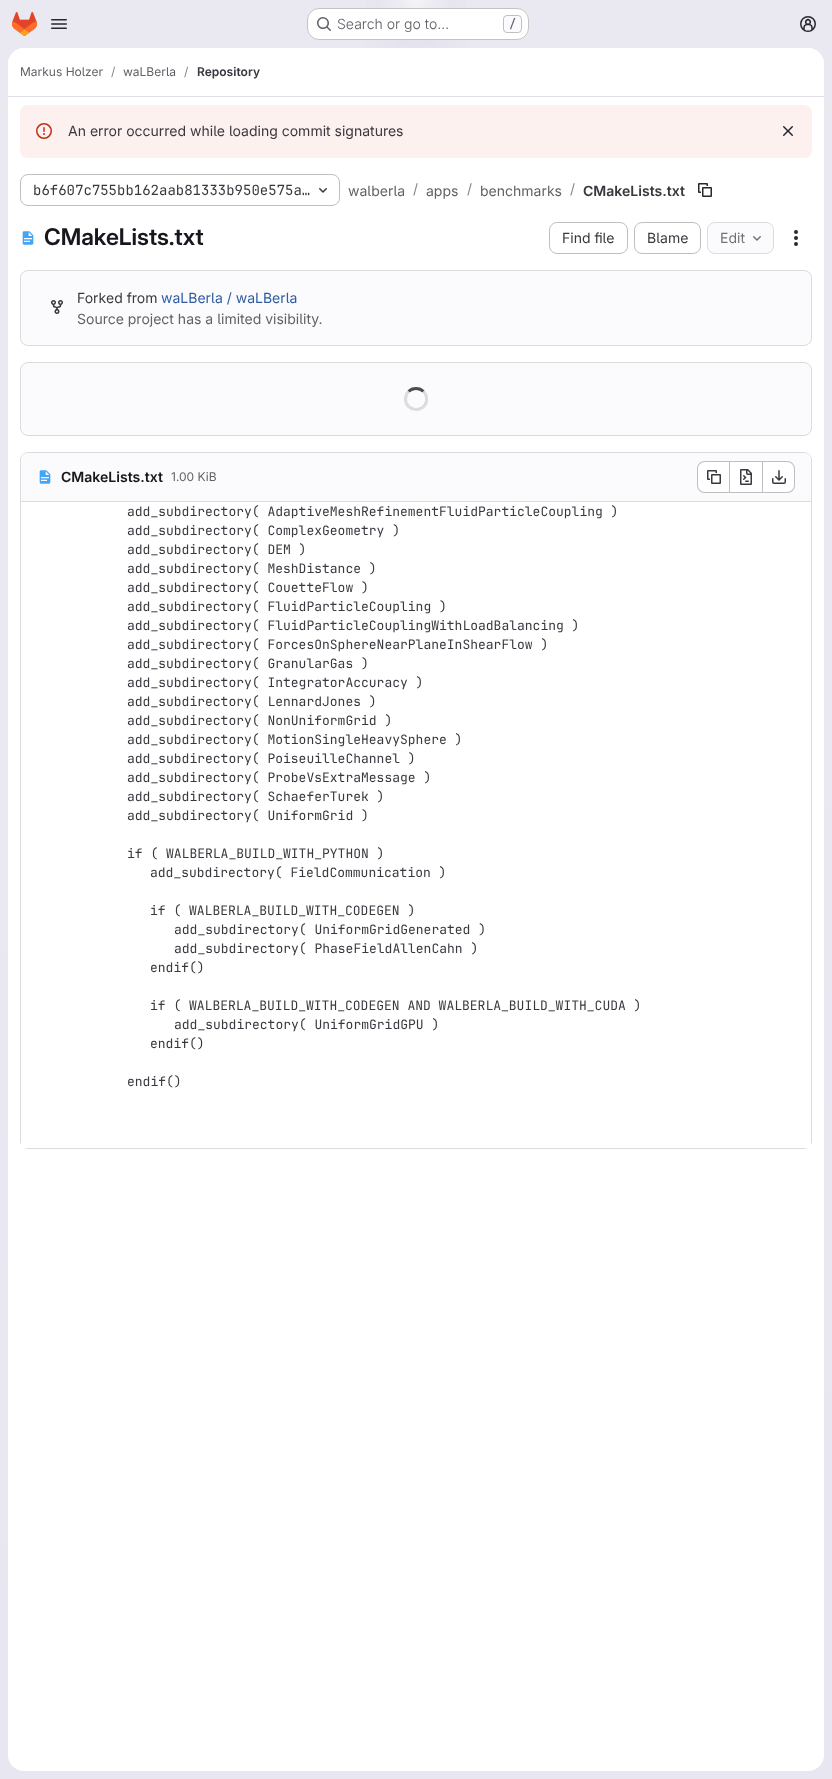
(async () => {
  const canvas = document.querySelector("canvas");
  canvas.width = 832;
  canvas.height = 1779;
  const ctx = canvas.getContext("2d");
  ctx.miterLimit = 4;
  ctx.fontKerning = "normal";
  async function loadImage(src) {
    const img = new Image();
    img.src = src;
    await img.decode();
    return img;
  }
  let gradient, path;

  ctx.fillStyle = "#ffffff";
  ctx.fillRect(0, 0, 832, 1779);
  gradient = ctx.createLinearGradient(581, 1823, 251, -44);
  gradient.addColorStop(0, "#e8e6f0");
  gradient.addColorStop(0.7, "#eae9f2");
  ctx.fillStyle = gradient;
  ctx.fillRect(0, 0, 832, 1779);
  gradient = ctx.createRadialGradient(416, 0, 0, 416, 0, 416);
  gradient.addColorStop(0, "#e4e2ed");
  gradient.addColorStop(0.17, "rgba(228, 226, 237, 0)");
  ctx.fillStyle = gradient;
  ctx.beginPath();
  ctx.rect(365, 0, 102, 48);
  ctx.save();
  ctx.clip();
  ctx.scale(1, 1779 / 416);
  ctx.fillRect(0, 0, 832, 416);
  ctx.restore();
  gradient = ctx.createRadialGradient(416, 0, 0, 416, 0, 416);
  gradient.addColorStop(0, "#e4e2ec");
  gradient.addColorStop(0.12, "rgba(228, 226, 236, 0)");
  ctx.fillStyle = gradient;
  ctx.beginPath();
  ctx.rect(397, 3, 38, 42);
  ctx.save();
  ctx.clip();
  ctx.scale(1, 1779 / 416);
  ctx.fillRect(0, 0, 832, 416);
  ctx.restore();
  gradient = ctx.createRadialGradient(416, 0, 0, 416, 0, 1827);
  gradient.addColorStop(0, "rgba(255, 255, 255, 0.6)");
  gradient.addColorStop(0.02, "rgba(255, 255, 255, 0)");
  ctx.fillStyle = gradient;
  ctx.fillRect(381, 0, 70, 8);
  ctx.drawImage(await loadImage("img/1.png"), 12, 12, 25, 24);
  ctx.drawImage(await loadImage("img/2.png"), 51, 19, 16, 10);
  ctx.fillStyle = "#ffffff";
  ctx.beginPath();
  ctx.roundRect(307, 8, 222, 32, 12);
  ctx.fill();
  ctx.beginPath();
  ctx.roundRect(307.5, 8.5, 221, 31, 11.5);
  ctx.strokeStyle = "rgba(5, 5, 6, 0.24)";
  ctx.stroke();
  ctx.drawImage(await loadImage("img/3.png"), 317, 17, 14, 14);
  ctx.fillStyle = "#fbfafd";
  ctx.beginPath();
  ctx.roundRect(503.5, 15.5, 18, 17, 3.5);
  ctx.fill();
  ctx.strokeStyle = "#bfbfc3";
  ctx.stroke();
  ctx.drawImage(await loadImage("img/4.png"), 800, 16, 16, 16);
  ctx.fillStyle = "#ffffff";
  ctx.beginPath();
  ctx.roundRect(8, 48, 816, 1723, 16);
  ctx.fill();
  ctx.beginPath();
  ctx.roundRect(8, 48, 816, 49, [16, 16, 0, 0]);
  ctx.fill();
  ctx.fillStyle = "#e1dfec";
  ctx.fillRect(8, 96, 816, 1);
  ctx.fillStyle = "#fcf1ef";
  ctx.beginPath();
  ctx.roundRect(20, 105, 792, 53, 8);
  ctx.fill();
  ctx.drawImage(await loadImage("img/5.png"), 36, 123, 16, 16);
  ctx.drawImage(await loadImage("img/6.png"), 783, 126, 10, 10);
  ctx.beginPath();
  ctx.roundRect(20.5, 174.5, 319, 31, 7.5);
  ctx.stroke();
  ctx.drawImage(await loadImage("img/7.png"), 319, 188, 8, 5);
  ctx.drawImage(await loadImage("img/8.png"), 698, 183, 14, 14);
  ctx.drawImage(await loadImage("img/9.png"), 22, 231, 12, 14);
  ctx.beginPath();
  ctx.roundRect(549.5, 222.5, 78, 31, 7.5);
  ctx.stroke();
  ctx.beginPath();
  ctx.roundRect(634.5, 222.5, 66, 31, 7.5);
  ctx.stroke();
  ctx.fillStyle = "#fbfafd";
  ctx.beginPath();
  ctx.roundRect(707.5, 222.5, 66, 31, 7.5);
  ctx.fill();
  ctx.strokeStyle = "#dcdcde";
  ctx.stroke();
  ctx.drawImage(await loadImage("img/10.png"), 753, 236, 8, 5);
  ctx.drawImage(await loadImage("img/11.png"), 794, 230, 4, 16);
  ctx.beginPath();
  ctx.roundRect(20.5, 270.5, 791, 75, 7.5);
  ctx.fill();
  ctx.stroke();
  ctx.drawImage(await loadImage("img/12.png"), 51, 300, 12, 14);
  ctx.beginPath();
  ctx.roundRect(20.5, 362.5, 791, 73, 7.5);
  ctx.fill();
  ctx.stroke();
  path = new Path2D("M408.5 391.5C412.5 387.5 419.5 387.5 423.5 391.5");
  ctx.strokeStyle = "#4c4b51";
  ctx.lineWidth = 3;
  ctx.stroke(path);
  path = new Path2D("M423.5 391.5C426 394 427 397.5 426.5 401C424 413.5 405.5 411.5 405.5 399C405.5 396 406.5 393.5 408.5 391.5");
  ctx.strokeStyle = "#dcdcde";
  ctx.stroke(path);
  ctx.beginPath();
  ctx.roundRect(20.5, 452.5, 791, 696, 7.5);
  ctx.lineWidth = 1;
  ctx.stroke();
  ctx.beginPath();
  ctx.roundRect(21, 453, 790, 49, [7, 7, 0, 0]);
  ctx.fill();
  ctx.fillStyle = "#dcdcde";
  ctx.fillRect(21, 501, 790, 1);
  ctx.drawImage(await loadImage("img/13.png"), 39, 470, 12, 14);
  ctx.fillStyle = "#ffffff";
  ctx.beginPath();
  ctx.roundRect(698, 462, 31, 30, [7, 0, 0, 7]);
  ctx.fill();
  ctx.fillStyle = "#bfbfc3";
  path = new Path2D("M705 461H729V493H705C700.5 493 697 489.5 697 485V469C697 464.5 700.5 461 705 461ZM705 462H729V492H705C701 492 698 489 698 485V469C698 465 701 462 705 462Z");
  ctx.fill(path, "evenodd");
  ctx.drawImage(await loadImage("img/14.png"), 707, 470, 14, 14);
  for (const [x, y, w, h, color] of [
    [730, 462, 32, 30, "#ffffff"],
    [730, 461, 32, 1, "#bfbfc3"],
    [730, 492, 32, 1, "#bfbfc3"],
    [729, 461, 1, 32, "#bfbfc3"],
  ]) {
    ctx.fillStyle = color;
    ctx.fillRect(x, y, w, h);
  }
  ctx.drawImage(await loadImage("img/15.png"), 740, 469, 12, 16);
  ctx.fillStyle = "#ffffff";
  ctx.beginPath();
  ctx.roundRect(763, 462, 31, 30, [0, 7, 7, 0]);
  ctx.fill();
  ctx.fillStyle = "#bfbfc3";
  path = new Path2D("M763 461H787C791.5 461 795 464.5 795 469V485C795 489.5 791.5 493 787 493H763ZM763 462H787C791 462 794 465 794 469V485C794 489 791 492 787 492H763Z");
  ctx.fill(path, "evenodd");
  ctx.fillRect(762, 461, 1, 32);
  ctx.drawImage(await loadImage("img/16.png"), 772, 470, 14, 14);
  ctx.fillStyle = "#ffffff";
  ctx.beginPath();
  ctx.roundRect(21, 502, 790, 646, [0, 0, 4, 4]);
  ctx.fill();
  ctx.beginPath();
  ctx.roundRect(21, 502, 96, 646, [0, 0, 0, 4]);
  ctx.fill();
  ctx.beginPath();
  ctx.roundRect(125, 502, 686, 646, [0, 0, 4, 0]);
  ctx.fill();
  ctx.font = "300 14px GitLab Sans";
  ctx.fillStyle = "#626168";
  ctx.fillText("Search or go to…", 337, 29);
  ctx.font = "500 12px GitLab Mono";
  ctx.fillText("/", 509, 28);
  ctx.font = "12px GitLab Sans";
  ctx.fillText("Markus Holzer", 20, 76);
  ctx.fillStyle = "#89888d";
  ctx.fillText("/", 111, 76);
  ctx.fillStyle = "#626168";
  ctx.fillText("waLBerla", 123, 76);
  ctx.fillStyle = "#89888d";
  ctx.fillText("/", 184, 76);
  ctx.font = "600 12px GitLab Sans";
  ctx.fillStyle = "#3a383f";
  ctx.fillText("Repository", 197, 76);
  ctx.font = "14px GitLab Sans";
  ctx.fillText("An error occurred while loading commit signatures", 68, 136);
  ctx.font = "14px GitLab Mono";
  ctx.fillText("b6f607c755bb162aab81333b950e575a…", 33, 195);
  ctx.font = "14px GitLab Sans";
  ctx.fillStyle = "#626168";
  ctx.fillText("walberla", 348, 196);
  ctx.fillStyle = "#89888d";
  ctx.fillText("/", 413, 194);
  ctx.fillStyle = "#626168";
  ctx.fillText("apps", 426, 196);
  ctx.fillStyle = "#89888d";
  ctx.fillText("/", 467, 194);
  ctx.fillStyle = "#626168";
  ctx.fillText("benchmarks", 480, 196);
  ctx.fillStyle = "#89888d";
  ctx.fillText("/", 570, 194);
  ctx.font = "600 14px GitLab Sans";
  ctx.fillStyle = "#3a383f";
  ctx.fillText("CMakeLists.txt", 583, 196);
  ctx.font = "600 23px 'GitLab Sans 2'";
  ctx.fillStyle = "#18171d";
  ctx.fillText("CMakeLists.txt", 44, 245);
  ctx.font = "14px GitLab Sans";
  ctx.fillStyle = "#3a383f";
  ctx.fillText("Find file", 562, 243);
  ctx.fillText("Blame", 647, 243);
  ctx.fillStyle = "#737278";
  ctx.fillText("Edit", 720, 243);
  ctx.fillStyle = "#3a383f";
  ctx.fillText("Forked from", 77, 303);
  ctx.fillStyle = "#2f5ca0";
  ctx.fillText("waLBerla / waLBerla", 161, 303);
  ctx.fillStyle = "#626168";
  ctx.fillText("Source project has a limited visibility.", 77, 324);
  ctx.font = "600 14px GitLab Sans";
  ctx.fillStyle = "#18171d";
  ctx.fillText("CMakeLists.txt", 61, 482);
  ctx.font = "12px GitLab Sans";
  ctx.fillStyle = "#626168";
  ctx.fillText("1.00 KiB", 171, 481);
  ctx.font = "13px GitLab Mono";
  ctx.fillStyle = "#3a383f";
  for (const [text, x, y] of [
    ["add_subdirectory( AdaptiveMeshRefinementFluidParticleCoupling )", 127, 516],
    ["add_subdirectory( ComplexGeometry )", 127, 535],
    ["add_subdirectory( DEM )", 127, 554],
    ["add_subdirectory( MeshDistance )", 127, 573],
    ["add_subdirectory( CouetteFlow )", 127, 592],
    ["add_subdirectory( FluidParticleCoupling )", 127, 611],
    ["add_subdirectory( FluidParticleCouplingWithLoadBalancing )", 127, 630],
    ["add_subdirectory( ForcesOnSphereNearPlaneInShearFlow )", 127, 649],
    ["add_subdirectory( GranularGas )", 127, 668],
    ["add_subdirectory( IntegratorAccuracy )", 127, 687],
    ["add_subdirectory( LennardJones )", 127, 706],
    ["add_subdirectory( NonUniformGrid )", 127, 725],
    ["add_subdirectory( MotionSingleHeavySphere )", 127, 744],
    ["add_subdirectory( PoiseuilleChannel )", 127, 763],
    ["add_subdirectory( ProbeVsExtraMessage )", 127, 782],
    ["add_subdirectory( SchaeferTurek )", 127, 801],
    ["add_subdirectory( UniformGrid )", 127, 820],
    ["if ( WALBERLA_BUILD_WITH_PYTHON )", 127, 858],
    ["add_subdirectory( FieldCommunication )", 150, 877],
    ["if ( WALBERLA_BUILD_WITH_CODEGEN )", 150, 915],
    ["add_subdirectory( UniformGridGenerated )", 174, 934],
    ["add_subdirectory( PhaseFieldAllenCahn )", 174, 953],
    ["endif()", 150, 972],
    ["if ( WALBERLA_BUILD_WITH_CODEGEN AND WALBERLA_BUILD_WITH_CUDA )", 150, 1010],
    ["add_subdirectory( UniformGridGPU )", 174, 1029],
    ["endif()", 150, 1048],
    ["endif()", 127, 1086],
  ]) {
    ctx.fillText(text, x, y);
  }
})();
